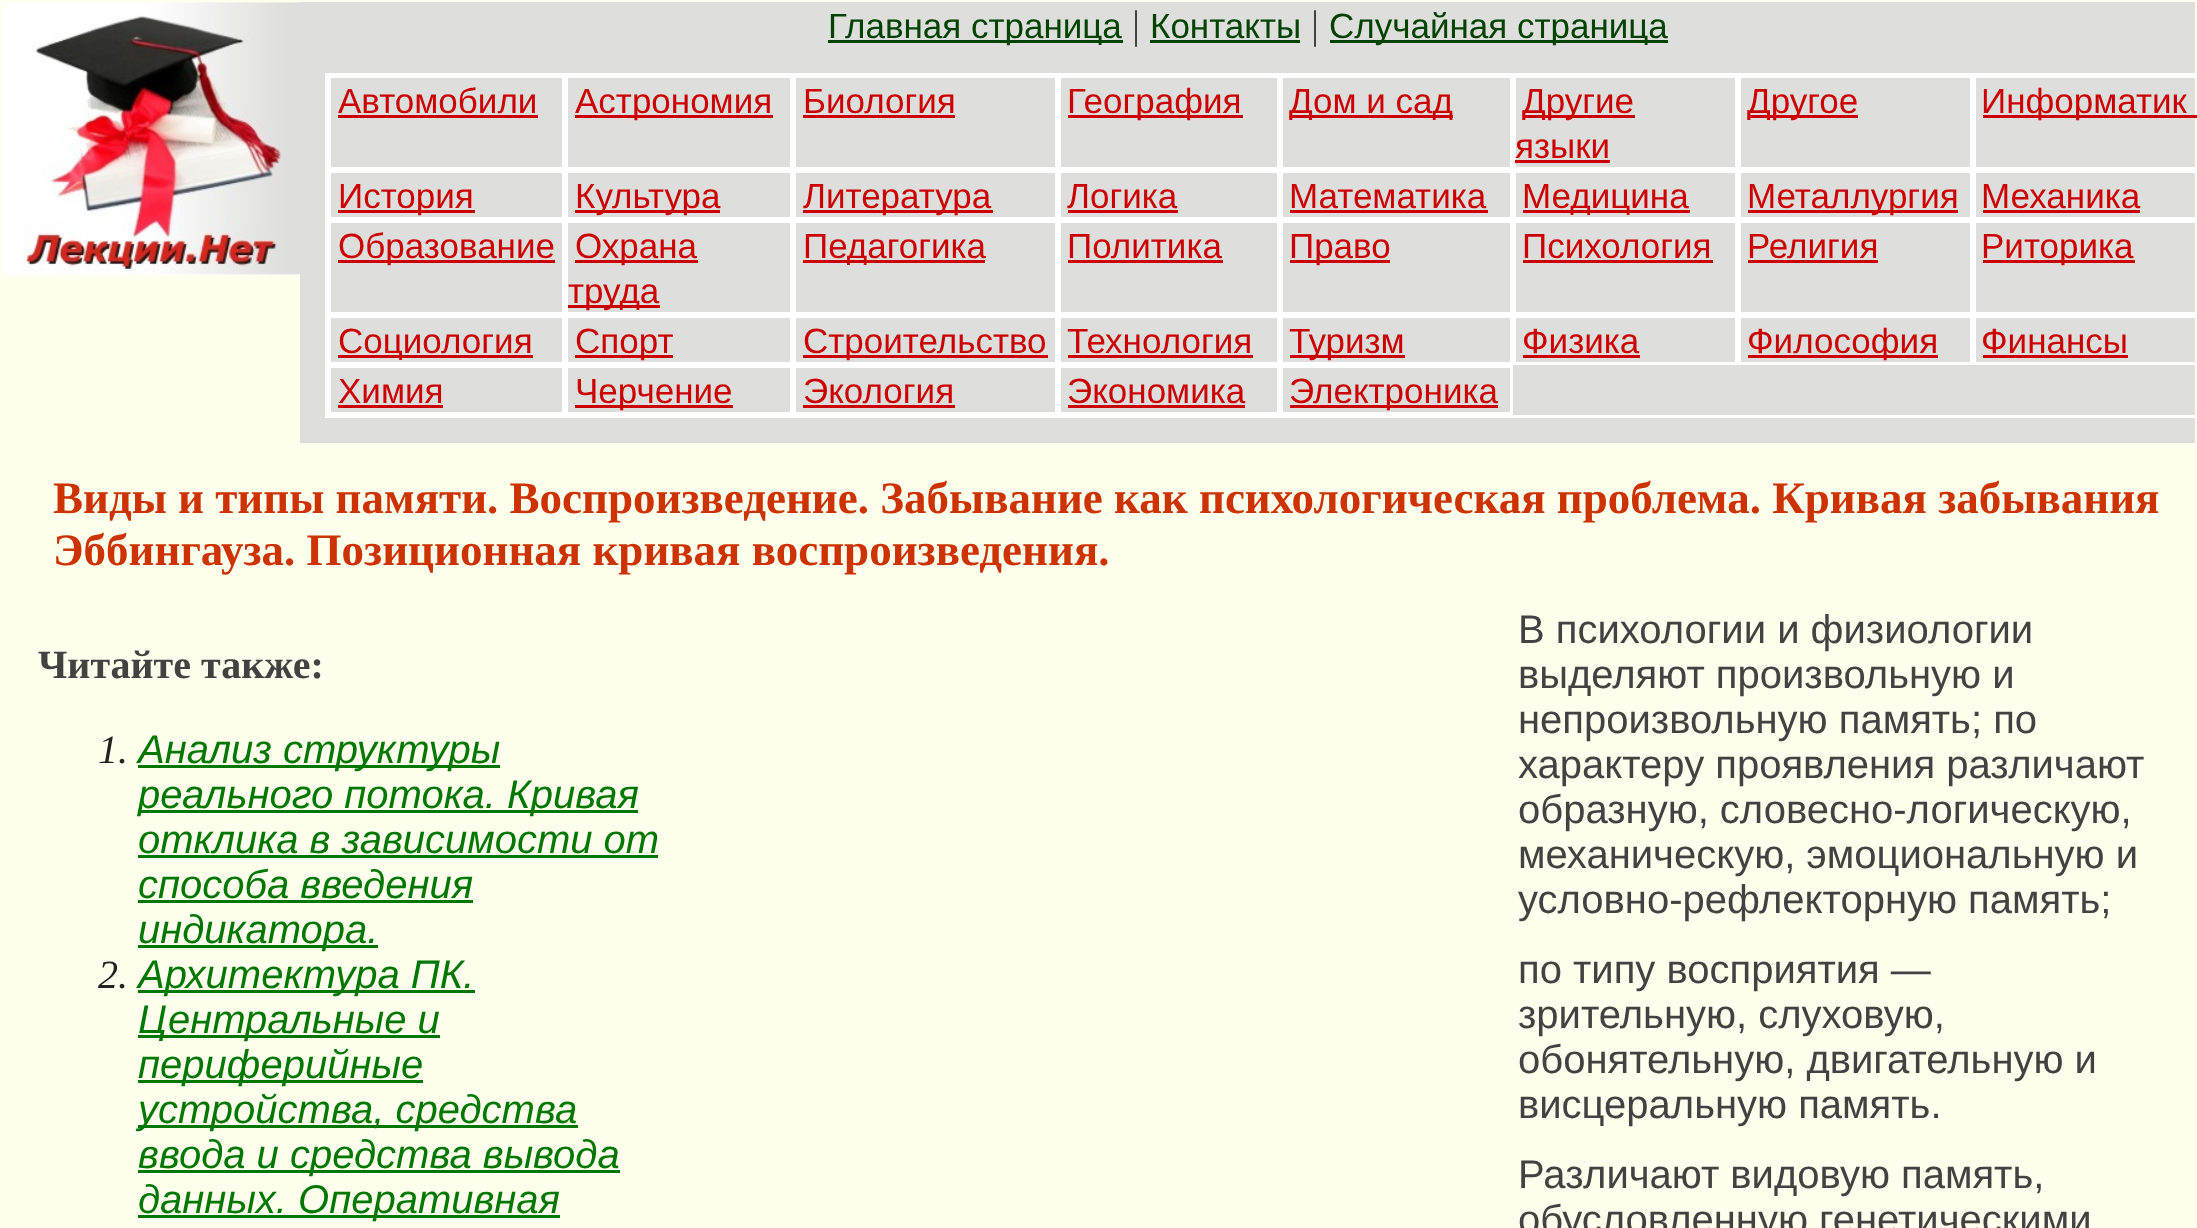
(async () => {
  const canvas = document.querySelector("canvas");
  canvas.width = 2197;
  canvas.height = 1228;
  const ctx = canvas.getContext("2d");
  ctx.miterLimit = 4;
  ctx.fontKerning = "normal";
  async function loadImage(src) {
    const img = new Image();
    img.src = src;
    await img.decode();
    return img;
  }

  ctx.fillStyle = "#ffffee";
  ctx.fillRect(0, 0, 2197, 1228);
  ctx.drawImage(await loadImage("img/1.png"), 2, 2, 298, 273);
  for (const [x, y, w, h, color] of [
    [300, 2, 1895, 441, "#dededc"],
    [828, 40, 295, 3, "#004400"],
    [1150, 40, 150, 3, "#004400"],
    [1330, 40, 338, 3, "#004400"],
  ]) {
    ctx.fillStyle = color;
    ctx.fillRect(x, y, w, h);
  }
  ctx.strokeStyle = "#ffffff";
  ctx.lineWidth = 3;
  ctx.strokeRect(326.5, 74.5, 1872, 342);
  ctx.strokeRect(329.5, 76.5, 234, 92);
  ctx.fillStyle = "#cc0000";
  ctx.fillRect(338, 115, 200, 3);
  ctx.strokeRect(566.5, 76.5, 225, 92);
  ctx.fillRect(575, 115, 198, 3);
  ctx.strokeRect(794.5, 76.5, 262, 92);
  ctx.fillRect(803, 115, 152, 3);
  ctx.strokeRect(1059.5, 76.5, 219, 92);
  ctx.fillRect(1068, 115, 175, 3);
  ctx.strokeRect(1281.5, 76.5, 230, 92);
  ctx.fillRect(1290, 115, 163, 3);
  ctx.strokeRect(1514.5, 76.5, 222, 92);
  ctx.fillRect(1523, 115, 112, 3);
  ctx.fillRect(1515, 160, 95, 3);
  ctx.strokeRect(1739.5, 76.5, 232, 92);
  ctx.fillRect(1748, 115, 110, 3);
  ctx.strokeRect(1974.5, 76.5, 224, 92);
  ctx.fillRect(1983, 115, 214, 3);
  ctx.strokeRect(329.5, 171.5, 234, 47);
  ctx.fillRect(338, 210, 137, 3);
  ctx.strokeRect(566.5, 171.5, 225, 47);
  ctx.fillRect(575, 210, 145, 3);
  ctx.strokeRect(794.5, 171.5, 262, 47);
  ctx.fillRect(803, 210, 190, 3);
  ctx.strokeRect(1059.5, 171.5, 219, 47);
  ctx.fillRect(1068, 210, 110, 3);
  ctx.strokeRect(1281.5, 171.5, 230, 47);
  ctx.fillRect(1290, 210, 198, 3);
  ctx.strokeRect(1514.5, 171.5, 222, 47);
  ctx.fillRect(1523, 210, 167, 3);
  ctx.strokeRect(1739.5, 171.5, 232, 47);
  ctx.fillRect(1748, 210, 210, 3);
  ctx.strokeRect(1974.5, 171.5, 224, 47);
  ctx.fillRect(1983, 210, 157, 3);
  ctx.strokeRect(329.5, 221.5, 234, 92);
  ctx.fillRect(338, 260, 217, 3);
  ctx.strokeRect(566.5, 221.5, 225, 92);
  ctx.fillRect(575, 260, 123, 3);
  ctx.fillRect(568, 305, 92, 3);
  ctx.strokeRect(794.5, 221.5, 262, 92);
  ctx.fillRect(803, 260, 182, 3);
  ctx.strokeRect(1059.5, 221.5, 219, 92);
  ctx.fillRect(1068, 260, 155, 3);
  ctx.strokeRect(1281.5, 221.5, 230, 92);
  ctx.fillRect(1290, 260, 100, 3);
  ctx.strokeRect(1514.5, 221.5, 222, 92);
  ctx.fillRect(1523, 260, 190, 3);
  ctx.strokeRect(1739.5, 221.5, 232, 92);
  ctx.fillRect(1748, 260, 130, 3);
  ctx.strokeRect(1974.5, 221.5, 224, 92);
  ctx.fillRect(1983, 260, 152, 3);
  ctx.strokeRect(329.5, 316.5, 234, 47);
  ctx.fillRect(338, 355, 195, 3);
  ctx.strokeRect(566.5, 316.5, 225, 47);
  ctx.fillRect(575, 355, 98, 3);
  ctx.strokeRect(794.5, 316.5, 262, 47);
  ctx.fillRect(803, 355, 245, 3);
  ctx.strokeRect(1059.5, 316.5, 219, 47);
  ctx.fillRect(1068, 355, 185, 3);
  ctx.strokeRect(1281.5, 316.5, 230, 47);
  ctx.fillRect(1290, 355, 115, 3);
  ctx.strokeRect(1514.5, 316.5, 222, 47);
  ctx.fillRect(1523, 355, 117, 3);
  ctx.strokeRect(1739.5, 316.5, 232, 47);
  ctx.fillRect(1748, 355, 190, 3);
  ctx.strokeRect(1974.5, 316.5, 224, 47);
  ctx.fillRect(1983, 355, 145, 3);
  ctx.strokeRect(329.5, 366.5, 234, 47);
  ctx.fillRect(338, 405, 105, 3);
  ctx.strokeRect(566.5, 366.5, 225, 47);
  ctx.fillRect(575, 405, 158, 3);
  ctx.strokeRect(794.5, 366.5, 262, 47);
  ctx.fillRect(803, 405, 152, 3);
  ctx.strokeRect(1059.5, 366.5, 219, 47);
  ctx.fillRect(1068, 405, 177, 3);
  ctx.strokeRect(1281.5, 366.5, 230, 47);
  for (const [x, y, w, h, color] of [
    [1290, 405, 208, 3, "#cc0000"],
    [138, 765, 362, 3, "#007700"],
    [138, 810, 500, 3, "#007700"],
    [138, 855, 520, 3, "#007700"],
    [138, 900, 335, 3, "#007700"],
    [138, 945, 240, 3, "#007700"],
    [138, 990, 337, 3, "#007700"],
    [138, 1035, 302, 3, "#007700"],
    [138, 1080, 285, 3, "#007700"],
    [138, 1125, 440, 3, "#007700"],
    [138, 1170, 482, 3, "#007700"],
    [138, 1215, 422, 3, "#007700"],
  ]) {
    ctx.fillStyle = color;
    ctx.fillRect(x, y, w, h);
  }
  ctx.font = "35px Liberation Sans";
  ctx.fillStyle = "#004400";
  ctx.fillText("Главная страница", 828, 38);
  ctx.font = "40px Liberation Serif";
  ctx.fillStyle = "#424242";
  ctx.fillText("|", 1132, 38);
  ctx.font = "35px Liberation Sans";
  ctx.fillStyle = "#004400";
  ctx.fillText("Контакты", 1150, 38);
  ctx.font = "40px Liberation Serif";
  ctx.fillStyle = "#424242";
  ctx.fillText("|", 1311, 38);
  ctx.font = "35px Liberation Sans";
  ctx.fillStyle = "#004400";
  ctx.fillText("Случайная страница", 1329, 38);
  ctx.fillStyle = "#cc0000";
  for (const [text, x, y] of [
    ["Автомобили", 338, 113],
    ["Астрономия", 575, 113],
    ["Биология", 803, 113],
    ["География", 1067, 113],
    ["Дом и сад", 1289, 113],
    ["Другие", 1522, 113],
    ["языки", 1515, 158],
    ["Другое", 1747, 113],
    ["Информатик", 1981, 113],
    ["История", 338, 208],
    ["Культура", 575, 208],
    ["Литература", 803, 208],
    ["Логика", 1067, 208],
    ["Математика", 1289, 208],
    ["Медицина", 1522, 208],
    ["Металлургия", 1747, 208],
    ["Механика", 1981, 208],
    ["Образование", 338, 258],
    ["Охрана", 575, 258],
    ["труда", 568, 303],
    ["Педагогика", 803, 258],
    ["Политика", 1067, 258],
    ["Право", 1289, 258],
    ["Психология", 1522, 258],
    ["Религия", 1747, 258],
    ["Риторика", 1981, 258],
    ["Социология", 338, 353],
    ["Спорт", 575, 353],
    ["Строительство", 803, 353],
    ["Технология", 1067, 353],
    ["Туризм", 1289, 353],
    ["Физика", 1522, 353],
    ["Философия", 1747, 353],
    ["Финансы", 1981, 353],
    ["Химия", 338, 403],
    ["Черчение", 575, 403],
    ["Экология", 803, 403],
    ["Экономика", 1067, 403],
    ["Электроника", 1289, 403],
  ]) {
    ctx.fillText(text, x, y);
  }
  ctx.font = "bold 45px Liberation Serif";
  ctx.fillStyle = "#cc3300";
  ctx.fillText("Виды и типы памяти. Воспроизведение. Забывание как психологическая проблема. Кривая забывания", 53, 513);
  ctx.fillText("Эббингауза. Позиционная кривая воспроизведения.", 53, 565);
  ctx.font = "bold 40px Liberation Serif";
  ctx.fillStyle = "#424242";
  ctx.fillText("Читайте также:", 38, 678);
  ctx.font = "italic 40px Liberation Serif";
  ctx.fillStyle = "#222222";
  ctx.fillText("1.", 98, 763);
  ctx.font = "italic 40px Liberation Sans";
  ctx.fillStyle = "#007700";
  for (const [text, x, y] of [
    ["Анализ структуры", 138, 763],
    ["реального потока. Кривая", 138, 808],
    ["отклика в зависимости от", 138, 853],
    ["способа введения", 138, 898],
    ["индикатора.", 138, 943],
  ]) {
    ctx.fillText(text, x, y);
  }
  ctx.font = "italic 40px Liberation Serif";
  ctx.fillStyle = "#222222";
  ctx.fillText("2.", 98, 988);
  ctx.font = "italic 40px Liberation Sans";
  ctx.fillStyle = "#007700";
  for (const [text, x, y] of [
    ["Архитектура ПК.", 138, 988],
    ["Центральные и", 138, 1033],
    ["периферийные", 138, 1078],
    ["устройства, средства", 138, 1123],
    ["ввода и средства вывода", 138, 1168],
    ["данных. Оперативная", 138, 1213],
  ]) {
    ctx.fillText(text, x, y);
  }
  ctx.font = "40px Liberation Sans";
  ctx.fillStyle = "#424242";
  for (const [text, x, y] of [
    ["В психологии и физиологии", 1518, 643],
    ["выделяют произвольную и", 1518, 688],
    ["непроизвольную память; по", 1518, 733],
    ["характеру проявления различают", 1518, 778],
    ["образную, словесно-логическую,", 1518, 823],
    ["механическую, эмоциональную и", 1518, 868],
    ["условно-рефлекторную память;", 1518, 913],
    ["по типу восприятия —", 1518, 983],
    ["зрительную, слуховую,", 1518, 1028],
    ["обонятельную, двигательную и", 1518, 1073],
    ["висцеральную память.", 1518, 1118],
    ["Различают видовую память,", 1518, 1188],
    ["обусловленную генетическими", 1518, 1233],
  ]) {
    ctx.fillText(text, x, y);
  }
})();
